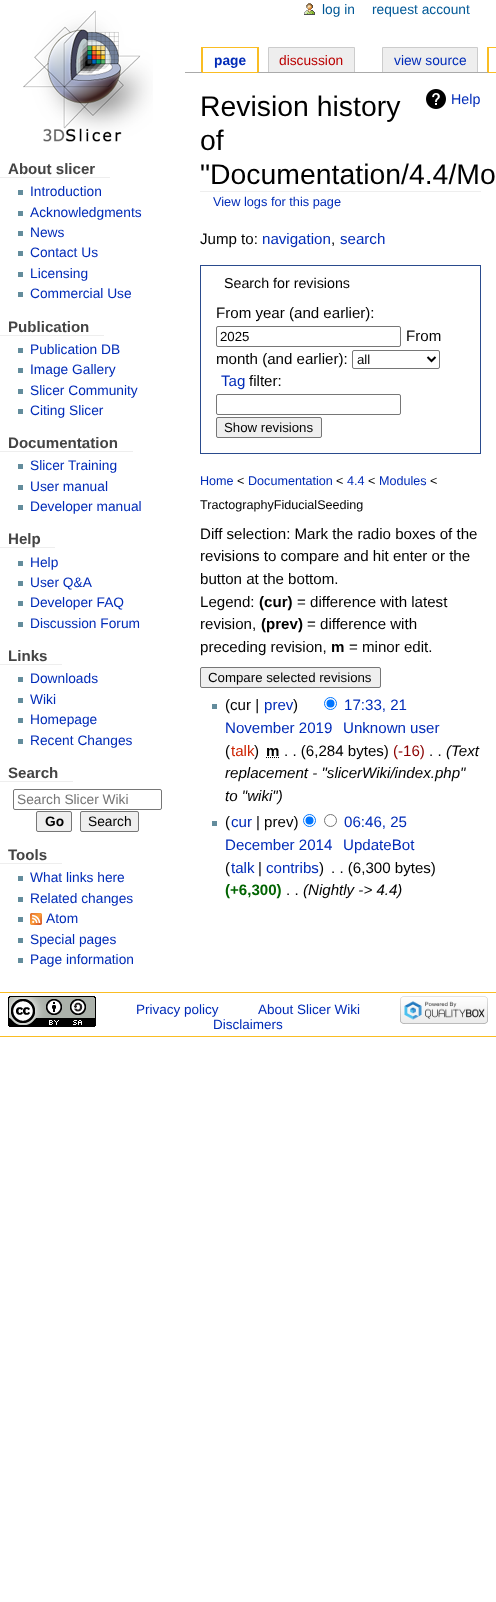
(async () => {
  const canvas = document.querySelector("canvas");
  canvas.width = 496;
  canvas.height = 1602;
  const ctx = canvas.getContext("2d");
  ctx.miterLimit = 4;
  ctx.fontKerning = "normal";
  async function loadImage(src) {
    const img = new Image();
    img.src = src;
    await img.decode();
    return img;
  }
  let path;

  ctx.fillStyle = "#ffffff";
  ctx.fillRect(0, 0, 496, 1602);
  ctx.drawImage(await loadImage("img/1.png"), 23, 10, 130, 132);
  ctx.drawImage(await loadImage("img/2.png"), 304, 3, 11, 12);
  ctx.fillStyle = "#fabd23";
  ctx.fillRect(258, 47, 1, 25);
  ctx.fillRect(201, 47, 1, 25);
  ctx.fillStyle = "#eeeeee";
  ctx.beginPath();
  ctx.rect(268.5, 47.5, 86, 25);
  ctx.fill();
  ctx.strokeStyle = "#cccccc";
  ctx.stroke();
  ctx.beginPath();
  ctx.rect(382.5, 47.5, 95, 25);
  ctx.fill();
  ctx.stroke();
  ctx.fillStyle = "#aaaaaa";
  ctx.fillRect(184, 72, 312, 1);
  ctx.strokeStyle = "#fabd23";
  ctx.strokeRect(202.5, 47.5, 55, 25);
  ctx.fillStyle = "#fabd23";
  ctx.fillRect(487, 47, 1, 25);
  ctx.fillStyle = "#ffffff";
  ctx.fillRect(489, 72, 7, 1);
  ctx.strokeRect(488.5, 47.5, 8, 25);
  for (const [x, y, w, h, color] of [
    [0, 177, 110, 1, "#eeeeee"],
    [18, 190, 5, 5, "#638c9c"],
    [18, 211, 5, 5, "#638c9c"],
    [18, 231, 5, 5, "#638c9c"],
    [18, 251, 5, 5, "#638c9c"],
    [18, 272, 5, 5, "#638c9c"],
    [18, 292, 5, 5, "#638c9c"],
    [0, 335, 104, 1, "#eeeeee"],
    [18, 348, 5, 5, "#638c9c"],
    [18, 368, 5, 5, "#638c9c"],
    [18, 389, 5, 5, "#638c9c"],
    [18, 409, 5, 5, "#638c9c"],
    [0, 451, 133, 1, "#eeeeee"],
    [18, 464, 5, 5, "#638c9c"],
    [18, 485, 5, 5, "#638c9c"],
    [18, 505, 5, 5, "#638c9c"],
    [0, 547, 55, 1, "#eeeeee"],
    [18, 561, 5, 5, "#638c9c"],
    [18, 581, 5, 5, "#638c9c"],
    [18, 601, 5, 5, "#638c9c"],
    [18, 622, 5, 5, "#638c9c"],
    [0, 664, 62, 1, "#eeeeee"],
    [18, 677, 5, 5, "#638c9c"],
    [18, 698, 5, 5, "#638c9c"],
    [18, 718, 5, 5, "#638c9c"],
    [18, 739, 5, 5, "#638c9c"],
    [0, 781, 73, 1, "#eeeeee"],
  ]) {
    ctx.fillStyle = color;
    ctx.fillRect(x, y, w, h);
  }
  ctx.beginPath();
  ctx.roundRect(13.5, 789.5, 148, 20, 1.5);
  ctx.strokeStyle = "#767676";
  ctx.stroke();
  ctx.fillStyle = "#efefef";
  ctx.beginPath();
  ctx.roundRect(36.5, 811.5, 35, 20, 1.5);
  ctx.fill();
  ctx.stroke();
  ctx.beginPath();
  ctx.roundRect(80.5, 811.5, 58, 20, 1.5);
  ctx.fill();
  ctx.stroke();
  for (const [x, y, w, h, color] of [
    [0, 863, 62, 1, "#eeeeee"],
    [18, 876, 5, 5, "#638c9c"],
    [18, 897, 5, 5, "#638c9c"],
    [18, 917, 5, 5, "#638c9c"],
  ]) {
    ctx.fillStyle = color;
    ctx.fillRect(x, y, w, h);
  }
  ctx.drawImage(await loadImage("img/3.png"), 30, 913, 12, 12);
  for (const [x, y, w, h, color] of [
    [18, 938, 5, 5, "#638c9c"],
    [18, 958, 5, 5, "#638c9c"],
    [184, 72, 1, 1, "#fffffe"],
  ]) {
    ctx.fillStyle = color;
    ctx.fillRect(x, y, w, h);
  }
  ctx.drawImage(await loadImage("img/4.png"), 426, 89, 20, 20);
  ctx.fillStyle = "#eeeeee";
  ctx.fillRect(200, 191, 281, 1);
  ctx.strokeStyle = "#2a4b8d";
  ctx.strokeRect(200.5, 265.5, 280, 188);
  ctx.beginPath();
  ctx.roundRect(216.5, 326.5, 184, 20, 1.5);
  ctx.strokeStyle = "#767676";
  ctx.stroke();
  ctx.beginPath();
  ctx.roundRect(352.5, 350.5, 87, 18, 1.5);
  ctx.stroke();
  path = new Path2D("M427.5 357L431.5 361L435.5 357");
  ctx.strokeStyle = "#000000";
  ctx.lineWidth = 2;
  ctx.stroke(path);
  ctx.beginPath();
  ctx.roundRect(216.5, 394.5, 184, 20, 1.5);
  ctx.strokeStyle = "#767676";
  ctx.lineWidth = 1;
  ctx.stroke();
  ctx.fillStyle = "#efefef";
  ctx.beginPath();
  ctx.roundRect(216.5, 417.5, 105, 20, 1.5);
  ctx.fill();
  ctx.stroke();
  ctx.beginPath();
  ctx.roundRect(200.5, 667.5, 180, 20, 1.5);
  ctx.fill();
  ctx.stroke();
  ctx.fillStyle = "#638c9c";
  ctx.fillRect(212, 704, 5, 5);
  ctx.beginPath();
  ctx.arc(330.5, 703.5, 6, 0, Math.PI * 2);
  ctx.strokeStyle = "#0075ff";
  ctx.stroke();
  ctx.fillStyle = "#0075ff";
  ctx.beginPath();
  ctx.arc(330.5, 703.5, 4, 0, Math.PI * 2);
  ctx.fill();
  path = new Path2D("M266 757.5H279.5");
  ctx.strokeStyle = "#000000";
  ctx.setLineDash([1, 1]);
  ctx.stroke(path);
  ctx.fillStyle = "#638c9c";
  ctx.fillRect(212, 821, 5, 5);
  ctx.beginPath();
  ctx.arc(309.5, 820.5, 6, 0, Math.PI * 2);
  ctx.strokeStyle = "#0075ff";
  ctx.setLineDash([]);
  ctx.stroke();
  ctx.fillStyle = "#0075ff";
  ctx.beginPath();
  ctx.arc(309.5, 820.5, 4, 0, Math.PI * 2);
  ctx.fill();
  ctx.beginPath();
  ctx.arc(330.5, 820.5, 6, 0, Math.PI * 2);
  ctx.strokeStyle = "#767676";
  ctx.stroke();
  ctx.fillStyle = "#fabd23";
  ctx.fillRect(0, 992, 496, 1);
  ctx.fillRect(0, 1036, 496, 1);
  ctx.drawImage(await loadImage("img/5.png"), 8, 996, 88, 31);
  ctx.drawImage(await loadImage("img/6.png"), 400, 996, 88, 28);
  ctx.font = "13.75px Liberation Sans";
  ctx.fillStyle = "#005896";
  ctx.fillText("log in", 322, 14);
  ctx.fillText("request account", 372, 14);
  ctx.font = "bold 13.75px Liberation Sans";
  ctx.fillStyle = "#002bb8";
  ctx.fillText("page", 214, 65);
  ctx.font = "13.75px Liberation Sans";
  ctx.fillStyle = "#ba0000";
  ctx.fillText("discussion", 279, 65);
  ctx.fillStyle = "#002bb8";
  ctx.fillText("view source", 394, 65);
  ctx.font = "bold 15.1px Liberation Sans";
  ctx.fillStyle = "#444444";
  ctx.fillText("About slicer", 8, 174);
  ctx.font = "13.75px Liberation Sans";
  ctx.fillStyle = "#002bb8";
  for (const [text, x, y] of [
    ["Introduction", 30, 196],
    ["Acknowledgments", 30, 217],
    ["News", 30, 237],
    ["Contact Us", 30, 257],
    ["Licensing", 30, 278],
    ["Commercial Use", 30, 298],
  ]) {
    ctx.fillText(text, x, y);
  }
  ctx.font = "bold 15.1px Liberation Sans";
  ctx.fillStyle = "#444444";
  ctx.fillText("Publication", 8, 332);
  ctx.font = "13.75px Liberation Sans";
  ctx.fillStyle = "#002bb8";
  for (const [text, x, y] of [
    ["Publication DB", 30, 354],
    ["Image Gallery", 30, 374],
    ["Slicer Community", 30, 395],
    ["Citing Slicer", 30, 415],
  ]) {
    ctx.fillText(text, x, y);
  }
  ctx.font = "bold 15.1px Liberation Sans";
  ctx.fillStyle = "#444444";
  ctx.fillText("Documentation", 8, 448);
  ctx.font = "13.75px Liberation Sans";
  ctx.fillStyle = "#002bb8";
  for (const [text, x, y] of [
    ["Slicer Training", 30, 470],
    ["User manual", 30, 491],
    ["Developer manual", 30, 511],
  ]) {
    ctx.fillText(text, x, y);
  }
  ctx.font = "bold 15.1px Liberation Sans";
  ctx.fillStyle = "#444444";
  ctx.fillText("Help", 8, 544);
  ctx.font = "13.75px Liberation Sans";
  ctx.fillStyle = "#002bb8";
  for (const [text, x, y] of [
    ["Help", 30, 567],
    ["User Q&A", 30, 587],
    ["Developer FAQ", 30, 607],
    ["Discussion Forum", 30, 628],
  ]) {
    ctx.fillText(text, x, y);
  }
  ctx.font = "bold 15.1px Liberation Sans";
  ctx.fillStyle = "#444444";
  ctx.fillText("Links", 8, 661);
  ctx.font = "13.75px Liberation Sans";
  ctx.fillStyle = "#002bb8";
  for (const [text, x, y] of [
    ["Downloads", 30, 683],
    ["Wiki", 30, 704],
    ["Homepage", 30, 724],
    ["Recent Changes", 30, 745],
  ]) {
    ctx.fillText(text, x, y);
  }
  ctx.font = "bold 15.1px Liberation Sans";
  ctx.fillStyle = "#444444";
  ctx.fillText("Search", 8, 778);
  ctx.font = "13.75px Liberation Sans";
  ctx.fillStyle = "#757575";
  ctx.fillText("Search Slicer Wiki", 17, 804);
  ctx.font = "bold 13.75px Liberation Sans";
  ctx.fillStyle = "#000000";
  ctx.fillText("Go", 45, 826);
  ctx.font = "13.75px Liberation Sans";
  ctx.fillText("Search", 88, 826);
  ctx.font = "bold 15.1px Liberation Sans";
  ctx.fillStyle = "#444444";
  ctx.fillText("Tools", 8, 860);
  ctx.font = "13.75px Liberation Sans";
  ctx.fillStyle = "#002bb8";
  for (const [text, x, y] of [
    ["What links here", 30, 882],
    ["Related changes", 30, 903],
    ["Atom", 46, 923],
    ["Special pages", 30, 944],
    ["Page information", 30, 964],
  ]) {
    ctx.fillText(text, x, y);
  }
  ctx.font = "14.25px Liberation Sans";
  ctx.fillText("Help", 451, 104);
  ctx.font = "28.4px Liberation Sans";
  ctx.fillStyle = "#000000";
  for (const [text, x, y] of [
    ["Revision history", 200, 116],
    ["of", 200, 150],
    ["\"Documentation/4.4/Mo", 200, 184],
  ]) {
    ctx.fillText(text, x, y);
  }
  ctx.font = "12.75px Liberation Sans";
  ctx.fillStyle = "#002bb8";
  ctx.fillText("View logs for this page", 213, 206);
  ctx.font = "15.1px Liberation Sans";
  ctx.fillStyle = "#000000";
  ctx.fillText("Jump to:", 200, 244);
  ctx.fillStyle = "#002bb8";
  ctx.fillText("navigation", 262, 244);
  ctx.fillStyle = "#000000";
  ctx.fillText(",", 331, 244);
  ctx.fillStyle = "#002bb8";
  ctx.fillText("search", 340, 244);
  ctx.font = "14.25px Liberation Sans";
  ctx.fillStyle = "#000000";
  ctx.fillText("Search for revisions", 224, 288);
  ctx.font = "15.1px Liberation Sans";
  ctx.fillText("From year (and earlier):", 216, 318);
  ctx.font = "13.25px Liberation Sans";
  ctx.fillText("2025", 220, 341);
  ctx.font = "15.1px Liberation Sans";
  ctx.fillText("From", 406, 341);
  ctx.fillText("month (and earlier):", 216, 364);
  ctx.font = "13.25px Liberation Sans";
  ctx.fillText("all", 357, 364);
  ctx.font = "15.1px Liberation Sans";
  ctx.fillStyle = "#002bb8";
  ctx.fillText("Tag", 221, 386);
  ctx.fillStyle = "#000000";
  ctx.fillText("filter:", 249, 386);
  ctx.font = "13.25px Liberation Sans";
  ctx.fillText("Show revisions", 224, 432);
  ctx.font = "12.6px Liberation Sans";
  ctx.fillStyle = "#002bb8";
  ctx.fillText("Home", 200, 485);
  ctx.fillStyle = "#000000";
  ctx.fillText("<", 237, 485);
  ctx.fillStyle = "#002bb8";
  ctx.fillText("Documentation", 248, 485);
  ctx.fillStyle = "#000000";
  ctx.fillText("<", 336, 485);
  ctx.fillStyle = "#002bb8";
  ctx.fillText("4.4", 347, 485);
  ctx.fillStyle = "#000000";
  ctx.fillText("<", 368, 485);
  ctx.fillStyle = "#002bb8";
  ctx.fillText("Modules", 379, 485);
  ctx.fillStyle = "#000000";
  ctx.fillText("<", 430, 485);
  ctx.fillText("TractographyFiducialSeeding", 200, 509);
  ctx.font = "15.1px Liberation Sans";
  for (const [text, x, y] of [
    ["Diff selection: Mark the radio boxes of the", 200, 539],
    ["revisions to compare and hit enter or the", 200, 561],
    ["button at the bottom.", 200, 584],
    ["Legend:", 200, 607],
  ]) {
    ctx.fillText(text, x, y);
  }
  ctx.font = "bold 15.1px Liberation Sans";
  ctx.fillText("(cur)", 259, 607);
  ctx.font = "15.1px Liberation Sans";
  ctx.fillText("= difference with latest", 297, 607);
  ctx.fillText("revision,", 200, 629);
  ctx.font = "bold 15.1px Liberation Sans";
  ctx.fillText("(prev)", 261, 629);
  ctx.font = "15.1px Liberation Sans";
  ctx.fillText("= difference with", 307, 629);
  ctx.fillText("preceding revision,", 200, 652);
  ctx.font = "bold 15.1px Liberation Sans";
  ctx.fillText("m", 331, 652);
  ctx.font = "15.1px Liberation Sans";
  ctx.fillText("= minor edit.", 349, 652);
  ctx.font = "13.25px Liberation Sans";
  ctx.fillText("Compare selected revisions", 208, 682);
  ctx.font = "15.1px Liberation Sans";
  ctx.fillText("(cur |", 225, 710);
  ctx.fillStyle = "#002bb8";
  ctx.fillText("prev", 264, 710);
  ctx.fillStyle = "#000000";
  ctx.fillText(")", 293, 710);
  ctx.fillStyle = "#002bb8";
  for (const [text, x, y] of [
    ["17:33, 21", 344, 710],
    ["November 2019", 225, 733],
    ["Unknown user", 343, 733],
  ]) {
    ctx.fillText(text, x, y);
  }
  ctx.fillStyle = "#000000";
  ctx.fillText("(", 225, 756);
  ctx.fillStyle = "#cc2200";
  ctx.fillText("talk", 231, 756);
  ctx.fillStyle = "#000000";
  ctx.fillText(")", 254, 756);
  ctx.font = "bold 15.1px Liberation Sans";
  ctx.fillText("m", 266, 756);
  ctx.font = "15.1px Liberation Sans";
  ctx.fillText(". . (6,284 bytes)", 284, 756);
  ctx.fillStyle = "#8b0000";
  ctx.fillText("(-16)", 393, 756);
  ctx.fillStyle = "#000000";
  ctx.fillText(". .", 429, 756);
  ctx.font = "italic 15.1px Liberation Sans";
  for (const [text, x, y] of [
    ["(Text", 446, 756],
    ["replacement - \"slicerWiki/index.php\"", 225, 778],
    ["to \"wiki\")", 225, 801],
  ]) {
    ctx.fillText(text, x, y);
  }
  ctx.font = "15.1px Liberation Sans";
  ctx.fillText("(", 225, 827);
  ctx.fillStyle = "#002bb8";
  ctx.fillText("cur", 231, 827);
  ctx.fillStyle = "#000000";
  ctx.fillText("| prev)", 256, 827);
  ctx.fillStyle = "#002bb8";
  for (const [text, x, y] of [
    ["06:46, 25", 344, 827],
    ["December 2014", 225, 850],
    ["UpdateBot", 343, 850],
  ]) {
    ctx.fillText(text, x, y);
  }
  ctx.fillStyle = "#000000";
  ctx.fillText("(", 225, 873);
  ctx.fillStyle = "#002bb8";
  ctx.fillText("talk", 231, 873);
  ctx.fillStyle = "#000000";
  ctx.fillText("|", 258, 873);
  ctx.fillStyle = "#002bb8";
  ctx.fillText("contribs", 266, 873);
  ctx.fillStyle = "#000000";
  ctx.fillText(")", 319, 873);
  ctx.fillText(". . (6,300 bytes)", 331, 873);
  ctx.font = "bold 15.1px Liberation Sans";
  ctx.fillStyle = "#006400";
  ctx.fillText("(+6,300)", 225, 895);
  ctx.font = "15.1px Liberation Sans";
  ctx.fillStyle = "#000000";
  ctx.fillText(". .", 286, 895);
  ctx.font = "italic 15.1px Liberation Sans";
  ctx.fillText("(Nightly -> 4.4)", 303, 895);
  ctx.font = "13.5px Liberation Sans";
  ctx.fillStyle = "#002bb8";
  for (const [text, x, y] of [
    ["Privacy policy", 136, 1014],
    ["About Slicer Wiki", 258, 1014],
    ["Disclaimers", 213, 1029],
  ]) {
    ctx.fillText(text, x, y);
  }
})();
